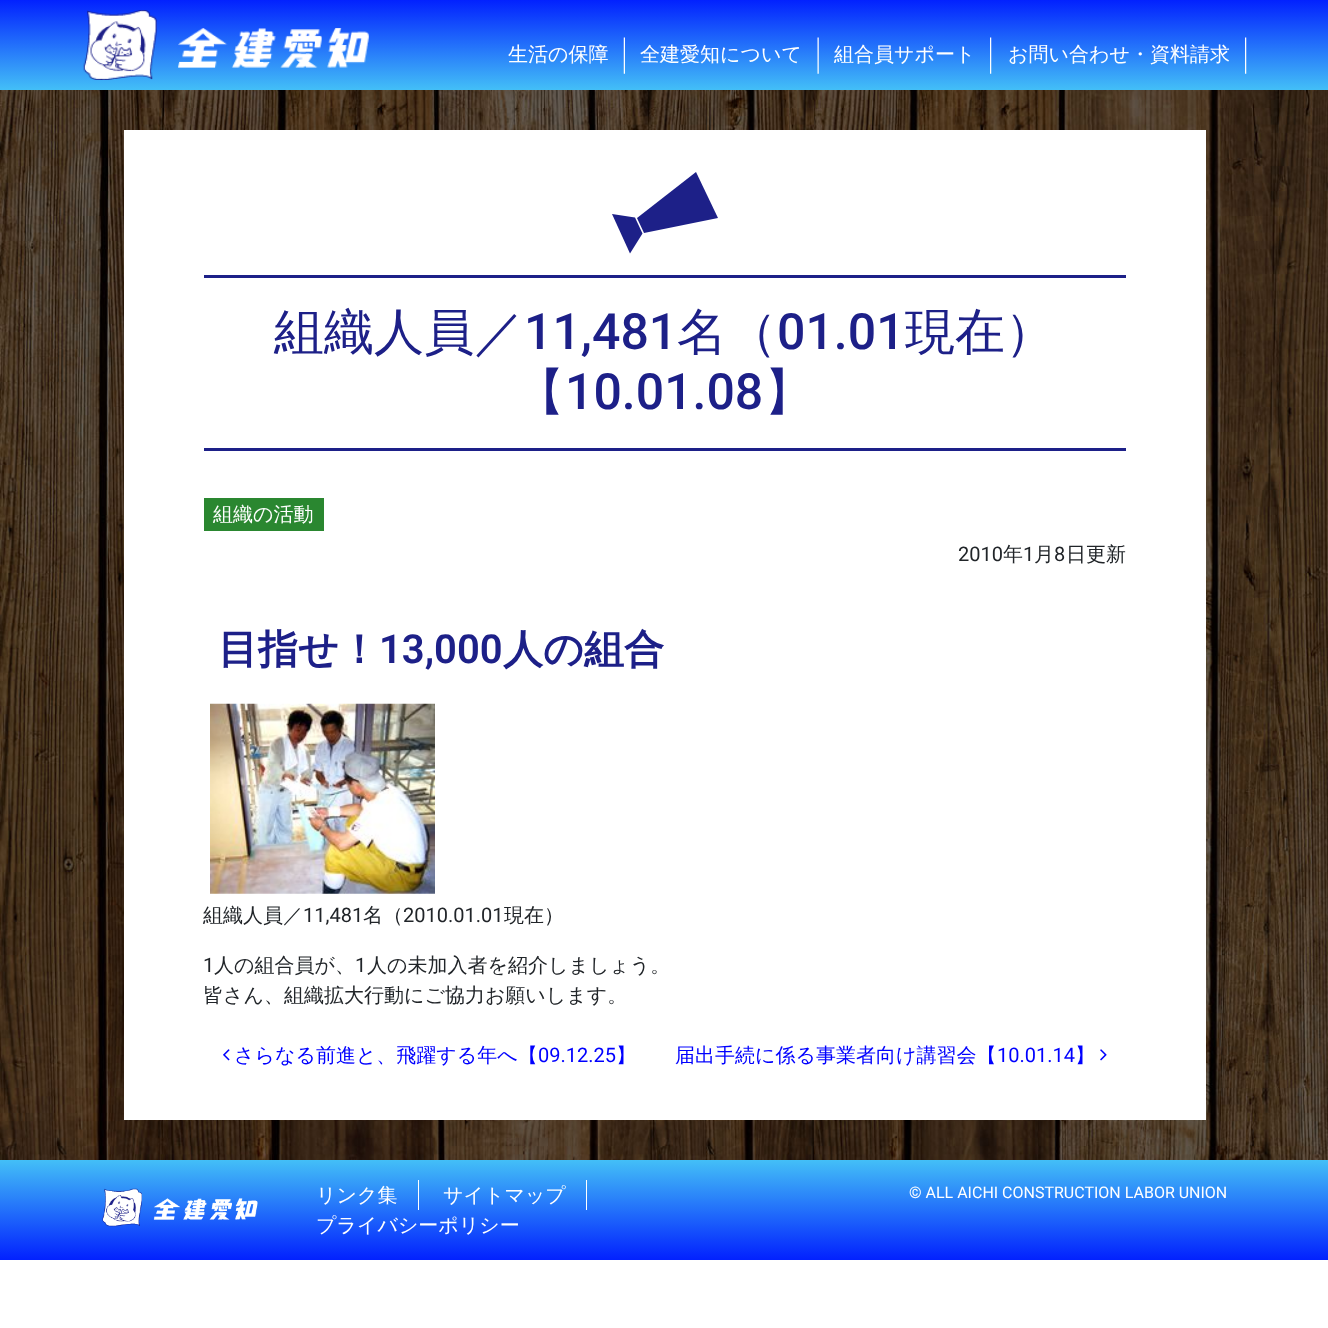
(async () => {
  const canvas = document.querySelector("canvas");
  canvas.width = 1328;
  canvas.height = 1328;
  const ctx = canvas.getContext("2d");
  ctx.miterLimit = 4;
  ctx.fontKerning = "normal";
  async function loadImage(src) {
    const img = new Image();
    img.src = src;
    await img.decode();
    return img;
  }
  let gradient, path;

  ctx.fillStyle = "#ffffff";
  ctx.fillRect(0, 0, 1328, 1328);
  gradient = ctx.createLinearGradient(664, 0, 664, 90);
  gradient.addColorStop(0, "#020024");
  gradient.addColorStop(0, "#0221fe");
  gradient.addColorStop(1, "#43bff7");
  ctx.fillStyle = gradient;
  ctx.fillRect(0, 0, 1328, 90);
  ctx.drawImage(await loadImage("img/1.png"), 83, 10, 286, 70);
  ctx.drawImage(await loadImage("img/2.png"), 623, 37, 2, 37);
  ctx.drawImage(await loadImage("img/3.png"), 817, 37, 2, 37);
  ctx.drawImage(await loadImage("img/4.png"), 990, 37, 2, 37);
  ctx.drawImage(await loadImage("img/4.png"), 1245, 37, 2, 37);
  ctx.drawImage(await loadImage("img/5.png"), 0, 90, 1328, 1070);
  ctx.fillStyle = "#ffffff";
  ctx.fillRect(124, 130, 1082, 990);
  ctx.fillStyle = "#1d2088";
  path = new Path2D("M718 218L644 233L637 218L696 172Z");
  ctx.fill(path);
  path = new Path2D("M630 253.5L642.5 233.5L635 217.5L612 214Z");
  ctx.fill(path);
  for (const [x, y, w, h, color] of [
    [204, 275, 922, 3, "#1d2088"],
    [204, 448, 922, 3, "#1d2088"],
    [204, 498, 120, 33, "#2a8730"],
  ]) {
    ctx.fillStyle = color;
    ctx.fillRect(x, y, w, h);
  }
  ctx.drawImage(await loadImage("img/6.png"), 210, 703, 225, 191);
  ctx.drawImage(await loadImage("img/7.png"), 223, 1049, 7, 12);
  ctx.drawImage(await loadImage("img/8.png"), 1100, 1049, 7, 12);
  gradient = ctx.createLinearGradient(664, 1160, 664, 1260);
  gradient.addColorStop(0, "#43bff7");
  gradient.addColorStop(1, "#0221fe");
  ctx.fillStyle = gradient;
  ctx.fillRect(0, 1160, 1328, 100);
  ctx.drawImage(await loadImage("img/9.png"), 102, 1188, 156, 39);
  ctx.fillStyle = "#ffffff";
  ctx.fillRect(418, 1180, 1, 30);
  ctx.fillRect(586, 1180, 1, 30);
  ctx.font = "500 20px WenQuanYi Zen Hei";
  for (const [text, x, y] of [
    ["生活の保障", 508, 61],
    ["全建愛知について", 640, 61],
    ["組合員サポート", 834, 61],
    ["お問い合わせ・資料請求", 1008, 61],
  ]) {
    ctx.fillText(text, x, y);
  }
  ctx.font = "500 50px WenQuanYi Zen Hei";
  ctx.fillStyle = "#1d2088";
  ctx.fillText("組織人員／", 274, 349);
  ctx.font = "500 50px Roboto";
  ctx.fillText("11,481", 524, 349);
  ctx.font = "500 50px WenQuanYi Zen Hei";
  ctx.fillText("名（", 677, 349);
  ctx.font = "500 50px Roboto";
  ctx.fillText("01.01", 777, 349);
  ctx.font = "500 50px WenQuanYi Zen Hei";
  ctx.fillText("現在）", 905, 349);
  ctx.fillText("【", 515, 409);
  ctx.font = "500 50px Roboto";
  ctx.fillText("10.01.08", 565, 409);
  ctx.font = "500 50px WenQuanYi Zen Hei";
  ctx.fillText("】", 764, 409);
  ctx.font = "500 20px WenQuanYi Zen Hei";
  ctx.fillStyle = "#ffffff";
  ctx.fillText("組織の活動", 213, 521);
  ctx.font = "20px Roboto";
  ctx.fillStyle = "#212529";
  ctx.fillText("2010", 958, 561);
  ctx.font = "500 20px WenQuanYi Zen Hei";
  ctx.fillText("年", 1003, 561);
  ctx.font = "20px Roboto";
  ctx.fillText("1", 1023, 561);
  ctx.font = "500 20px WenQuanYi Zen Hei";
  ctx.fillText("月", 1034, 561);
  ctx.font = "20px Roboto";
  ctx.fillText("8", 1054, 561);
  ctx.font = "500 20px WenQuanYi Zen Hei";
  ctx.fillText("日更新", 1066, 561);
  ctx.font = "bold 40px WenQuanYi Zen Hei";
  ctx.fillStyle = "#1d2088";
  ctx.fillText("目指せ！", 218, 663);
  ctx.font = "600 40px Roboto";
  ctx.fillText("13,000", 379, 663);
  ctx.font = "bold 40px WenQuanYi Zen Hei";
  ctx.fillText("人の組合", 503, 663);
  ctx.font = "500 20px WenQuanYi Zen Hei";
  ctx.fillStyle = "#212529";
  ctx.fillText("組織人員／", 203, 922);
  ctx.font = "20px Roboto";
  ctx.fillText("11,481", 303, 922);
  ctx.font = "500 20px WenQuanYi Zen Hei";
  ctx.fillText("名（", 363, 922);
  ctx.font = "20px Roboto";
  ctx.fillText("2010.01.01", 403, 922);
  ctx.font = "500 20px WenQuanYi Zen Hei";
  ctx.fillText("現在）", 504, 922);
  ctx.font = "20px Roboto";
  ctx.fillText("1", 203, 972);
  ctx.font = "500 20px WenQuanYi Zen Hei";
  ctx.fillText("人の組合員が、", 214, 972);
  ctx.font = "20px Roboto";
  ctx.fillText("1", 355, 972);
  ctx.font = "500 20px WenQuanYi Zen Hei";
  ctx.fillText("人の未加入者を紹介しましょう。", 367, 972);
  ctx.fillText("皆さん、組織拡大行動にご協力お願いします。", 203, 1002);
  ctx.fillStyle = "#0000ff";
  ctx.fillText("さらなる前進と、飛躍する年へ【", 234, 1062);
  ctx.font = "20px Roboto";
  ctx.fillText("09.12.25", 538, 1062);
  ctx.font = "500 20px WenQuanYi Zen Hei";
  ctx.fillText("】", 616, 1062);
  ctx.fillText("届出手続に係る事業者向け講習会【", 675, 1062);
  ctx.font = "20px Roboto";
  ctx.fillText("10.01.14", 997, 1062);
  ctx.font = "500 20px WenQuanYi Zen Hei";
  ctx.fillText("】", 1075, 1062);
  ctx.fillStyle = "#ffffff";
  for (const [text, x, y] of [
    ["リンク集", 316, 1202],
    ["サイトマップ", 443, 1202],
    ["プライバシーポリシー", 316, 1232],
  ]) {
    ctx.fillText(text, x, y);
  }
  ctx.font = "16px Roboto";
  ctx.fillText("© ALL AICHI CONSTRUCTION LABOR UNION", 909, 1198);
})();
